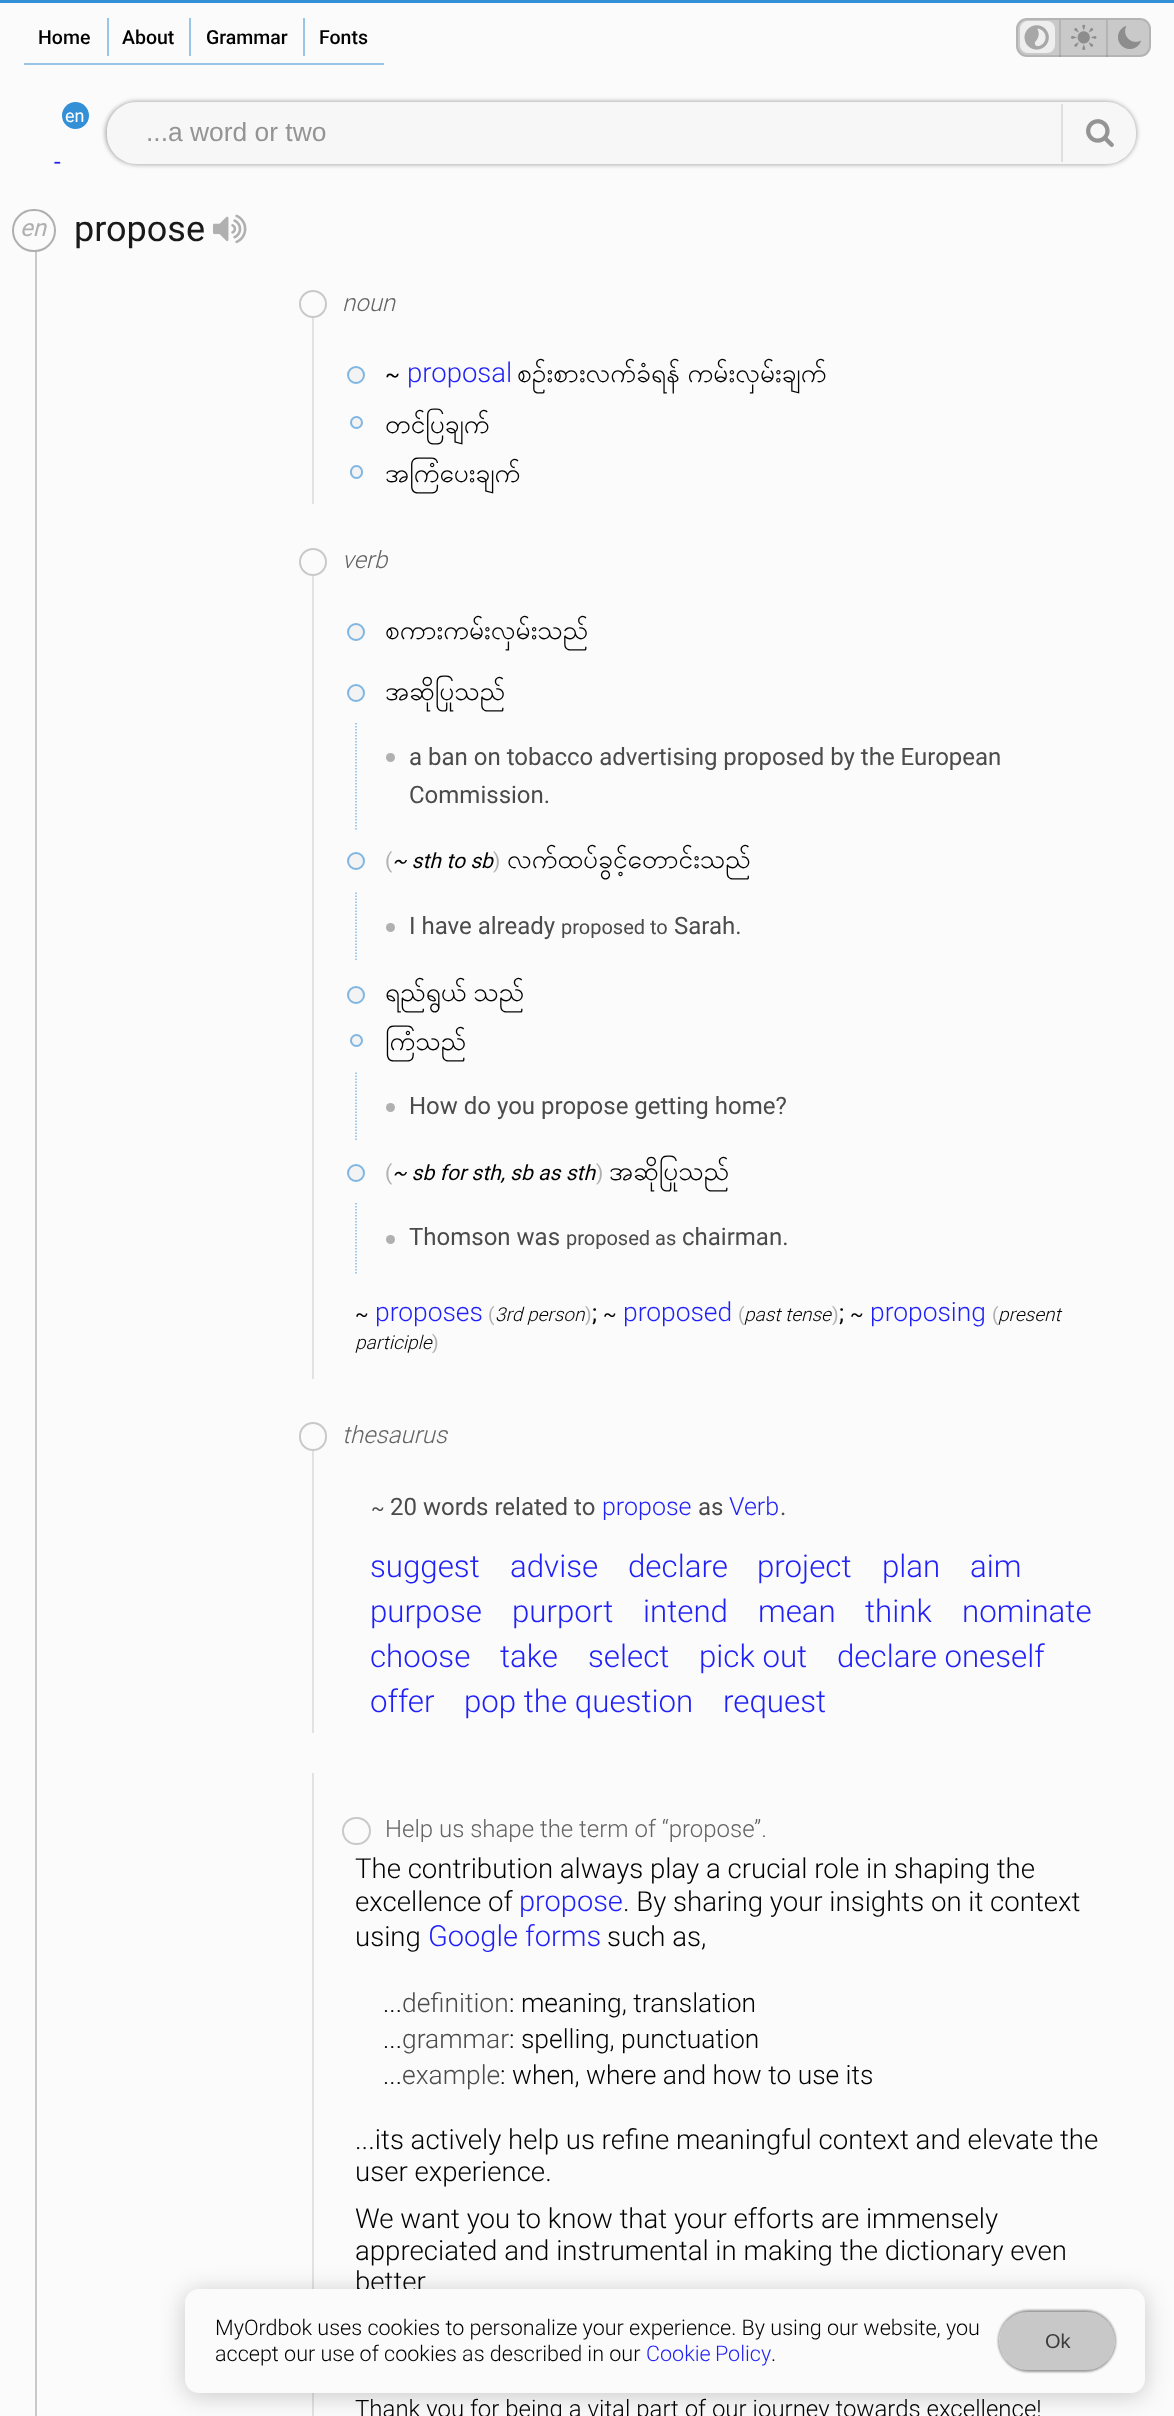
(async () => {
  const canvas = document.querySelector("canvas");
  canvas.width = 1174;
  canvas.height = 2416;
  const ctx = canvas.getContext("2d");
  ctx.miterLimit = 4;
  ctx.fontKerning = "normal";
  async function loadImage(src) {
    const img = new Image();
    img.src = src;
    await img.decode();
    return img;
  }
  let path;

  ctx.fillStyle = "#fcfbfb";
  ctx.fillRect(0, 0, 1174, 2416);
  for (const [x, y, w, h, color] of [
    [0, 0, 1174, 3, "#3390d7"],
    [24, 63, 360, 2, "#98c6e9"],
    [107, 18, 2, 38, "#98c6e9"],
    [189, 18, 2, 38, "#98c6e9"],
    [303, 18, 2, 38, "#98c6e9"],
  ]) {
    ctx.fillStyle = color;
    ctx.fillRect(x, y, w, h);
  }
  ctx.fillStyle = "#cac9c9";
  ctx.beginPath();
  ctx.roundRect(1016, 18, 135, 39, 11);
  ctx.fill();
  ctx.beginPath();
  ctx.roundRect(1017, 19, 133, 37, 10);
  ctx.strokeStyle = "rgba(0, 0, 0, 0.1)";
  ctx.lineWidth = 2;
  ctx.stroke();
  ctx.fillStyle = "rgba(0, 0, 0, 0.1)";
  ctx.fillRect(1059, 20, 2, 37);
  ctx.fillStyle = "#eeeeee";
  ctx.beginPath();
  ctx.roundRect(1020, 21, 35, 32, 8);
  ctx.fill();
  ctx.drawImage(await loadImage("img/1.png"), 1024, 25, 25, 25);
  ctx.fillStyle = "rgba(0, 0, 0, 0.1)";
  ctx.fillRect(1106, 20, 2, 37);
  ctx.drawImage(await loadImage("img/2.png"), 1071, 24, 26, 26);
  ctx.drawImage(await loadImage("img/3.png"), 1118, 26, 23, 23);
  ctx.fillStyle = "#3390d7";
  ctx.beginPath();
  ctx.arc(75.5, 115.5, 13.5, 0, Math.PI * 2);
  ctx.fill();
  ctx.save();
  path = new Path2D("M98 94H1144V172H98ZM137 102H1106C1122.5 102 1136 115.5 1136 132V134C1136 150.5 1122.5 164 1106 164H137C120.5 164 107 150.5 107 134V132C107 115.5 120.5 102 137 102Z");
  ctx.clip(path, "evenodd");
  ctx.fillStyle = "rgba(0, 0, 0, 0.3)";
  ctx.filter = "blur(2px)";
  ctx.beginPath();
  ctx.roundRect(105, 101, 1032, 64, 32);
  ctx.fill();
  ctx.filter = "none";
  ctx.restore();
  ctx.fillStyle = "rgba(238, 238, 238, 0.3)";
  ctx.beginPath();
  ctx.roundRect(107, 102, 1029, 62, 30);
  ctx.fill();
  ctx.fillStyle = "#dfdede";
  ctx.fillRect(1061, 104, 2, 58);
  ctx.drawImage(await loadImage("img/4.png"), 1086, 119, 28, 28);
  ctx.fillStyle = "#cac9c9";
  ctx.fillRect(35, 251, 2, 2165);
  ctx.fillStyle = "#fcfbfb";
  ctx.beginPath();
  ctx.roundRect(12, 209, 44, 43, 21.5);
  ctx.fill();
  ctx.beginPath();
  ctx.roundRect(13, 210, 42, 41, 20.5);
  ctx.strokeStyle = "rgba(0, 0, 0, 0.3)";
  ctx.stroke();
  ctx.drawImage(await loadImage("img/5.png"), 213, 214, 34, 30);
  ctx.beginPath();
  ctx.arc(313, 304, 13, 0, Math.PI * 2);
  ctx.strokeStyle = "#cac9c9";
  ctx.stroke();
  ctx.fillStyle = "#e3e2e2";
  ctx.fillRect(312, 318, 2, 186);
  ctx.fillStyle = "#f4f3f3";
  ctx.beginPath();
  ctx.arc(356, 375, 9, 0, Math.PI * 2);
  ctx.fill();
  ctx.beginPath();
  ctx.arc(356, 375, 8, 0, Math.PI * 2);
  ctx.strokeStyle = "rgba(49, 142, 215, 0.6)";
  ctx.stroke();
  ctx.beginPath();
  ctx.arc(356.5, 422.5, 6.5, 0, Math.PI * 2);
  ctx.fill();
  ctx.beginPath();
  ctx.arc(356.5, 422.5, 5.5, 0, Math.PI * 2);
  ctx.stroke();
  ctx.beginPath();
  ctx.roundRect(350, 465, 13, 14, 6.5);
  ctx.fill();
  ctx.beginPath();
  ctx.roundRect(351, 466, 11, 12, 5.5);
  ctx.stroke();
  ctx.beginPath();
  ctx.arc(313, 562, 13, 0, Math.PI * 2);
  ctx.strokeStyle = "#cac9c9";
  ctx.stroke();
  ctx.fillStyle = "#e3e2e2";
  ctx.fillRect(312, 576, 2, 803);
  ctx.fillStyle = "#f4f3f3";
  ctx.beginPath();
  ctx.arc(356, 632, 9, 0, Math.PI * 2);
  ctx.fill();
  ctx.beginPath();
  ctx.arc(356, 632, 8, 0, Math.PI * 2);
  ctx.strokeStyle = "rgba(49, 142, 215, 0.6)";
  ctx.stroke();
  ctx.beginPath();
  ctx.arc(356, 693, 9, 0, Math.PI * 2);
  ctx.fill();
  ctx.beginPath();
  ctx.arc(356, 693, 8, 0, Math.PI * 2);
  ctx.stroke();
  path = new Path2D("M356 723V829.5");
  ctx.strokeStyle = "#82bae5";
  ctx.lineWidth = 1.5;
  ctx.setLineDash([1.5, 1.5]);
  ctx.stroke(path);
  ctx.fillStyle = "#b0b0b0";
  ctx.beginPath();
  ctx.arc(390.5, 757.5, 4.5, 0, Math.PI * 2);
  ctx.fill();
  ctx.fillStyle = "#f4f3f3";
  ctx.beginPath();
  ctx.arc(356, 861, 9, 0, Math.PI * 2);
  ctx.fill();
  ctx.beginPath();
  ctx.arc(356, 861, 8, 0, Math.PI * 2);
  ctx.strokeStyle = "rgba(49, 142, 215, 0.6)";
  ctx.lineWidth = 2;
  ctx.setLineDash([]);
  ctx.stroke();
  path = new Path2D("M356 892.5V961.5");
  ctx.strokeStyle = "#82bae5";
  ctx.lineWidth = 1.5;
  ctx.setLineDash([1.5, 1.5]);
  ctx.stroke(path);
  ctx.fillStyle = "#b0b0b0";
  ctx.beginPath();
  ctx.arc(390.5, 927.5, 4.5, 0, Math.PI * 2);
  ctx.fill();
  ctx.fillStyle = "#f4f3f3";
  ctx.beginPath();
  ctx.arc(356, 995, 9, 0, Math.PI * 2);
  ctx.fill();
  ctx.beginPath();
  ctx.arc(356, 995, 8, 0, Math.PI * 2);
  ctx.strokeStyle = "rgba(49, 142, 215, 0.6)";
  ctx.lineWidth = 2;
  ctx.setLineDash([]);
  ctx.stroke();
  ctx.beginPath();
  ctx.arc(356.5, 1040.5, 6.5, 0, Math.PI * 2);
  ctx.fill();
  ctx.beginPath();
  ctx.arc(356.5, 1040.5, 5.5, 0, Math.PI * 2);
  ctx.stroke();
  path = new Path2D("M356 1072.5V1141.5");
  ctx.strokeStyle = "#82bae5";
  ctx.lineWidth = 1.5;
  ctx.setLineDash([1.5, 1.5]);
  ctx.stroke(path);
  ctx.fillStyle = "#b0b0b0";
  ctx.beginPath();
  ctx.arc(390.5, 1107.5, 4.5, 0, Math.PI * 2);
  ctx.fill();
  ctx.fillStyle = "#f4f3f3";
  ctx.beginPath();
  ctx.arc(356, 1173, 9, 0, Math.PI * 2);
  ctx.fill();
  ctx.beginPath();
  ctx.arc(356, 1173, 8, 0, Math.PI * 2);
  ctx.strokeStyle = "rgba(49, 142, 215, 0.6)";
  ctx.lineWidth = 2;
  ctx.setLineDash([]);
  ctx.stroke();
  path = new Path2D("M356 1203V1273.5");
  ctx.strokeStyle = "#82bae5";
  ctx.lineWidth = 1.5;
  ctx.setLineDash([1.5, 1.5]);
  ctx.stroke(path);
  ctx.fillStyle = "#b0b0b0";
  ctx.beginPath();
  ctx.arc(390.5, 1239.5, 4.5, 0, Math.PI * 2);
  ctx.fill();
  ctx.beginPath();
  ctx.roundRect(300, 1423, 26, 27, 13);
  ctx.strokeStyle = "#cac9c9";
  ctx.lineWidth = 2;
  ctx.setLineDash([]);
  ctx.stroke();
  ctx.fillStyle = "#e3e2e2";
  ctx.fillRect(312, 1451, 2, 282);
  ctx.fillRect(312, 1773, 2, 643);
  ctx.beginPath();
  ctx.roundRect(343, 1818, 27, 26, 13);
  ctx.stroke();
  ctx.fillStyle = "rgba(0, 0, 0, 0.2)";
  ctx.filter = "blur(12px)";
  ctx.beginPath();
  ctx.roundRect(185, 2292, 960, 104, 14);
  ctx.fill();
  ctx.filter = "none";
  ctx.font = "500 19.5px Roboto";
  ctx.fillStyle = "#000000";
  for (const [text, x, y] of [
    ["Home", 38, 44],
    ["About", 122, 44],
    ["Grammar", 206, 44],
    ["Fonts", 319, 44],
  ]) {
    ctx.fillText(text, x, y);
  }
  ctx.font = "18px Roboto";
  ctx.fillStyle = "#ffffff";
  ctx.fillText("en", 65, 122);
  ctx.font = "24px Roboto";
  ctx.fillStyle = "#1f1ff7";
  ctx.fillText("-", 54, 170);
  ctx.font = "26.4px Liberation Sans";
  ctx.fillStyle = "#959494";
  ctx.fillText("...a word or two", 146, 141);
  ctx.font = "italic 24px Roboto";
  ctx.fillStyle = "#b0b0b0";
  ctx.fillText("en", 20, 236);
  ctx.font = "36px Roboto";
  ctx.fillStyle = "#191919";
  ctx.fillText("propose", 74, 241);
  ctx.font = "italic 300 24px Roboto";
  ctx.fillStyle = "#656464";
  ctx.fillText("noun", 342, 311);
  ctx.font = "22px Roboto";
  ctx.fillStyle = "#000000";
  ctx.fillText("~", 385, 382);
  ctx.font = "300 27.5px Roboto";
  ctx.fillStyle = "#1f1ff7";
  ctx.fillText("proposal", 407, 382);
  ctx.wordSpacing = "-2px";
  ctx.font = "26.4px Padauk";
  ctx.fillStyle = "#000000";
  ctx.fillText("စဉ်းစားလက်ခံရန် ကမ်းလှမ်းချက်", 517, 382);
  ctx.wordSpacing = "0px";
  ctx.fillText("တင်ပြချက်", 385, 433);
  ctx.fillText("အကြံပေးချက်", 385, 482);
  ctx.font = "italic 300 24px Roboto";
  ctx.fillStyle = "#656464";
  ctx.fillText("verb", 342, 568);
  ctx.font = "26.4px Padauk";
  ctx.fillStyle = "#000000";
  ctx.fillText("စကားကမ်းလှမ်းသည်", 385, 639);
  ctx.fillText("အဆိုပြုသည်", 385, 700);
  ctx.font = "24px Roboto";
  ctx.fillStyle = "#4c4b4b";
  ctx.fillText("a ban on tobacco advertising proposed by the European", 409, 765);
  ctx.fillText("Commission.", 409, 803);
  ctx.font = "21.1px Roboto";
  ctx.fillStyle = "#b0b0b0";
  ctx.fillText("(", 385, 868);
  ctx.font = "italic 21.1px Roboto";
  ctx.fillStyle = "#000000";
  ctx.fillText("~ sth to sb", 392, 868);
  ctx.font = "21.1px Roboto";
  ctx.fillStyle = "#b0b0b0";
  ctx.fillText(")", 493, 868);
  ctx.font = "26.4px Padauk";
  ctx.fillStyle = "#000000";
  ctx.fillText("လက်ထပ်ခွင့်တောင်းသည်", 507, 868);
  ctx.font = "24px Roboto";
  ctx.fillStyle = "#4c4b4b";
  ctx.fillText("I have already", 409, 934);
  ctx.font = "20px Roboto";
  ctx.fillText("proposed to", 561, 934);
  ctx.font = "24px Roboto";
  ctx.fillText("Sarah.", 674, 934);
  ctx.wordSpacing = "-3px";
  ctx.font = "26.4px Padauk";
  ctx.fillStyle = "#000000";
  ctx.fillText("ရည်ရွယ် သည်", 385, 1001);
  ctx.wordSpacing = "0px";
  ctx.fillText("ကြံသည်", 385, 1050);
  ctx.font = "24px Roboto";
  ctx.fillStyle = "#4c4b4b";
  ctx.fillText("How do you propose getting home?", 409, 1114);
  ctx.font = "21.1px Roboto";
  ctx.fillStyle = "#b0b0b0";
  ctx.fillText("(", 385, 1180);
  ctx.font = "italic 21.1px Roboto";
  ctx.fillStyle = "#000000";
  ctx.fillText("~ sb for sth, sb as sth", 392, 1180);
  ctx.font = "21.1px Roboto";
  ctx.fillStyle = "#b0b0b0";
  ctx.fillText(")", 596, 1180);
  ctx.font = "26.4px Padauk";
  ctx.fillStyle = "#000000";
  ctx.fillText("အဆိုပြုသည်", 609, 1180);
  ctx.font = "24px Roboto";
  ctx.fillStyle = "#4c4b4b";
  ctx.fillText("Thomson was", 409, 1245);
  ctx.font = "20px Roboto";
  ctx.fillText("proposed as", 566, 1245);
  ctx.font = "24px Roboto";
  ctx.fillText("chairman.", 682, 1245);
  ctx.font = "20px Roboto";
  ctx.fillStyle = "#000000";
  ctx.fillText("~", 355, 1321);
  ctx.font = "300 26.4px Roboto";
  ctx.fillStyle = "#1f1ff7";
  ctx.fillText("proposes", 375, 1321);
  ctx.font = "19px Roboto";
  ctx.fillStyle = "#b0b0b0";
  ctx.fillText("(", 488, 1321);
  ctx.font = "italic 300 19px Roboto";
  ctx.fillStyle = "#000000";
  ctx.fillText("3rd person", 495, 1321);
  ctx.font = "19px Roboto";
  ctx.fillStyle = "#b0b0b0";
  ctx.fillText(")", 585, 1321);
  ctx.font = "24px Roboto";
  ctx.fillStyle = "#000000";
  ctx.fillText(";", 592, 1321);
  ctx.font = "20px Roboto";
  ctx.fillText("~", 603, 1321);
  ctx.font = "300 26.4px Roboto";
  ctx.fillStyle = "#1f1ff7";
  ctx.fillText("proposed", 623, 1321);
  ctx.font = "19px Roboto";
  ctx.fillStyle = "#b0b0b0";
  ctx.fillText("(", 738, 1321);
  ctx.font = "italic 300 19px Roboto";
  ctx.fillStyle = "#000000";
  ctx.fillText("past tense", 744, 1321);
  ctx.font = "19px Roboto";
  ctx.fillStyle = "#b0b0b0";
  ctx.fillText(")", 832, 1321);
  ctx.font = "24px Roboto";
  ctx.fillStyle = "#000000";
  ctx.fillText(";", 839, 1321);
  ctx.font = "20px Roboto";
  ctx.fillText("~", 850, 1321);
  ctx.font = "300 26.4px Roboto";
  ctx.fillStyle = "#1f1ff7";
  ctx.fillText("proposing", 870, 1321);
  ctx.font = "19px Roboto";
  ctx.fillStyle = "#b0b0b0";
  ctx.fillText("(", 992, 1321);
  ctx.font = "italic 300 19px Roboto";
  ctx.fillStyle = "#000000";
  ctx.fillText("present", 998, 1321);
  ctx.fillText("participle", 355, 1349);
  ctx.font = "19px Roboto";
  ctx.fillStyle = "#b0b0b0";
  ctx.fillText(")", 432, 1349);
  ctx.font = "italic 300 24px Roboto";
  ctx.fillStyle = "#656464";
  ctx.fillText("thesaurus", 342, 1443);
  ctx.font = "20px Roboto";
  ctx.fillStyle = "#4c4b4b";
  ctx.fillText("~", 371, 1515);
  ctx.font = "24px Roboto";
  ctx.fillText("20 words related to", 390, 1515);
  ctx.font = "300 25px Roboto";
  ctx.fillStyle = "#1f1ff7";
  ctx.fillText("propose", 602, 1515);
  ctx.font = "24px Roboto";
  ctx.fillStyle = "#4c4b4b";
  ctx.fillText("as", 698, 1515);
  ctx.font = "300 25px Roboto";
  ctx.fillStyle = "#1f1ff7";
  ctx.fillText("Verb", 729, 1515);
  ctx.font = "24px Roboto";
  ctx.fillStyle = "#4c4b4b";
  ctx.fillText(".", 780, 1515);
  ctx.font = "300 31.25px Roboto";
  ctx.fillStyle = "#1f1ff7";
  for (const [text, x, y] of [
    ["suggest", 370, 1577],
    ["advise", 510, 1577],
    ["declare", 628, 1577],
    ["project", 757, 1577],
    ["plan", 882, 1577],
    ["aim", 970, 1577],
    ["purpose", 370, 1622],
    ["purport", 512, 1622],
    ["intend", 643, 1622],
    ["mean", 758, 1622],
    ["think", 865, 1622],
    ["nominate", 962, 1622],
    ["choose", 370, 1667],
    ["take", 500, 1667],
    ["select", 588, 1667],
    ["pick out", 699, 1667],
    ["declare oneself", 837, 1667],
    ["offer", 370, 1712],
    ["pop the question", 464, 1712],
    ["request", 723, 1712],
  ]) {
    ctx.fillText(text, x, y);
  }
  ctx.font = "300 24px Roboto";
  ctx.fillStyle = "#656464";
  ctx.fillText("Help us shape the term of “propose", 385, 1837);
  ctx.fillText("”.", 754, 1837);
  ctx.font = "300 27.6px Roboto";
  ctx.fillStyle = "#000000";
  ctx.fillText("The contribution always play a crucial role in shaping the", 355, 1878);
  ctx.fillText("excellence of", 355, 1911);
  ctx.font = "300 29px Roboto";
  ctx.fillStyle = "#1f1ff7";
  ctx.fillText("propose", 519, 1911);
  ctx.font = "300 27.6px Roboto";
  ctx.fillStyle = "#000000";
  ctx.fillText(". By sharing your insights on it context", 623, 1911);
  ctx.fillText("using", 355, 1946);
  ctx.font = "300 29px Roboto";
  ctx.fillStyle = "#1f1ff7";
  ctx.fillText("Google forms", 428, 1946);
  ctx.font = "300 27.6px Roboto";
  ctx.fillStyle = "#000000";
  ctx.fillText("such as,", 607, 1946);
  ctx.font = "300 26.4px Roboto";
  ctx.fillText("...", 383, 2012);
  ctx.fillStyle = "#4c4b4b";
  ctx.fillText("definition", 402, 2012);
  ctx.fillStyle = "#000000";
  ctx.fillText(": meaning, translation", 509, 2012);
  ctx.fillText("...", 383, 2048);
  ctx.fillStyle = "#4c4b4b";
  ctx.fillText("grammar", 402, 2048);
  ctx.fillStyle = "#000000";
  ctx.fillText(": spelling, punctuation", 509, 2048);
  ctx.fillText("...", 383, 2084);
  ctx.fillStyle = "#4c4b4b";
  ctx.fillText("example", 402, 2084);
  ctx.fillStyle = "#000000";
  ctx.fillText(": when, where and how to use its", 500, 2084);
  ctx.font = "300 27.6px Roboto";
  for (const [text, x, y] of [
    ["...its actively help us refine meaningful context and elevate the", 355, 2149],
    ["user experience.", 355, 2181],
    ["We want you to know that your efforts are immensely", 355, 2228],
    ["appreciated and instrumental in making the dictionary even", 355, 2260],
    ["better.", 355, 2291],
  ]) {
    ctx.fillText(text, x, y);
  }
  ctx.font = "300 24px Roboto";
  ctx.fillText("Thank you for being a vital part of our journey towards excellence!", 355, 2417);
  ctx.fillStyle = "#fcfbfb";
  ctx.beginPath();
  ctx.roundRect(185, 2289, 960, 104, 14);
  ctx.fill();
  ctx.font = "300 21.55px Roboto";
  ctx.fillStyle = "#000000";
  ctx.fillText("MyOrdbok uses cookies to personalize your experience. By using our website, you", 215, 2335);
  ctx.fillText("accept our use of cookies as described in our", 215, 2361);
  ctx.wordSpacing = "-1px";
  ctx.fillStyle = "#1f1ff7";
  ctx.fillText("Cookie Policy", 646, 2361);
  ctx.wordSpacing = "0px";
  ctx.fillStyle = "#000000";
  ctx.fillText(".", 771, 2361);
  ctx.save();
  path = new Path2D("M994 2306H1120V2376H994ZM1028 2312H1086C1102 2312 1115 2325 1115 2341C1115 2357 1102 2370 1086 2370H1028C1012 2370 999 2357 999 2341C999 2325 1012 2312 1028 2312Z");
  ctx.clip(path, "evenodd");
  ctx.fillStyle = "rgba(0, 0, 0, 0.4)";
  ctx.filter = "blur(1px)";
  ctx.beginPath();
  ctx.roundRect(998, 2310, 118, 62, 31);
  ctx.fill();
  ctx.filter = "none";
  ctx.restore();
  ctx.fillStyle = "rgba(0, 0, 0, 0.2)";
  ctx.beginPath();
  ctx.roundRect(999, 2312, 116, 58, 29);
  ctx.fill();
  ctx.font = "20px Liberation Sans";
  ctx.fillStyle = "#3c3c3c";
  ctx.fillText("Ok", 1045, 2348);
})();
